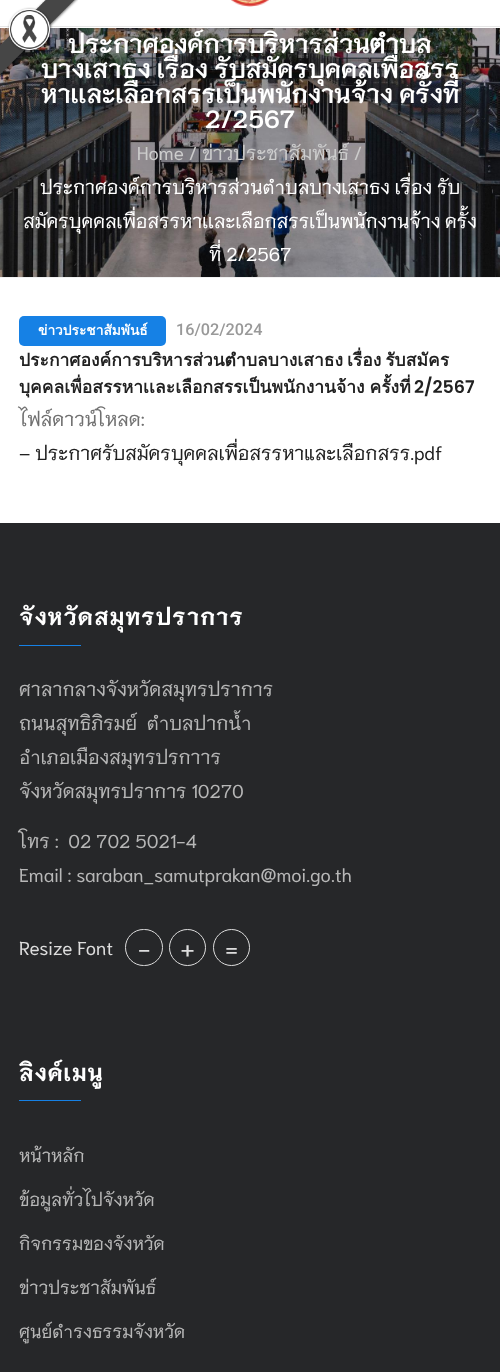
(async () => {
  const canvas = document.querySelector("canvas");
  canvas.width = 500;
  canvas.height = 1372;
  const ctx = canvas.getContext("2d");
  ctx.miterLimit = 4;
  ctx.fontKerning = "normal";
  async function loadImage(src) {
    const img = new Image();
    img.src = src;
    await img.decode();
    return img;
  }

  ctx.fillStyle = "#ffffff";
  ctx.fillRect(0, 0, 500, 1372);
  ctx.fillStyle = "#e6e6e6";
  ctx.fillRect(0, 26, 500, 1);
  ctx.drawImage(await loadImage("img/2.png"), 231, 0, 38, 7);
  ctx.fillStyle = "#f2f2f2";
  ctx.fillRect(0, 277, 500, 1);
  ctx.drawImage(await loadImage("img/3.png"), 0, 28, 500, 249);
  ctx.fillStyle = "#1681e5";
  ctx.beginPath();
  ctx.roundRect(19, 316, 147, 30, 5);
  ctx.fill();
  ctx.fillStyle = "#262729";
  ctx.fillRect(0, 523, 500, 849);
  ctx.fillStyle = "#1681e5";
  ctx.fillRect(19, 645, 62, 1);
  ctx.beginPath();
  ctx.roundRect(125.5, 929.5, 37, 36, 18);
  ctx.strokeStyle = "#dddddd";
  ctx.stroke();
  ctx.beginPath();
  ctx.arc(187.5, 947.5, 18, 0, Math.PI * 2);
  ctx.stroke();
  ctx.beginPath();
  ctx.arc(231.5, 947.5, 18, 0, Math.PI * 2);
  ctx.stroke();
  ctx.fillRect(19, 1100, 62, 1);
  ctx.font = "600 25px Niramit";
  ctx.fillStyle = "#ffffff";
  for (const [text, x, y] of [
    ["ประกาศองค์การบริหารส่วนตำบล", 68, 53],
    ["บางเสาธง เรื่อง รับสมัครบุคคลเพื่อสรร", 41, 78],
    ["หาเเละเลือกสรรเป็นพนักงานจ้าง ครั้งที่", 41, 103],
  ]) {
    ctx.fillText(text, x, y);
  }
  ctx.drawImage(await loadImage("img/1.png"), 0, 0, 78, 78);
  ctx.fillText("2/2567", 205, 128);
  ctx.font = "18.75px Niramit";
  ctx.fillStyle = "#cccccc";
  ctx.fillText("Home / ข่าวประชาสัมพันธ์ /", 137, 160);
  ctx.fillStyle = "#ffffff";
  for (const [text, x, y] of [
    ["ประกาศองค์การบริหารส่วนตำบลบางเสาธง เรื่อง รับ", 40, 194],
    ["สมัครบุคคลเพื่อสรรหาเเละเลือกสรรเป็นพนักงานจ้าง ครั้ง", 23, 228],
    ["ที่ 2/2567", 209, 261],
  ]) {
    ctx.fillText(text, x, y);
  }
  ctx.font = "bold 13.75px Loma";
  ctx.fillText("ข่าวประชาสัมพันธ์", 38, 335);
  ctx.font = "500 16.25px Roboto";
  ctx.fillStyle = "#999999";
  ctx.fillText("16/02/2024", 176, 335);
  ctx.wordSpacing = "-2px";
  ctx.font = "bold 17.5px Loma";
  ctx.fillStyle = "#212121";
  ctx.fillText("ประกาศองค์การบริหารส่วนตำบลบางเสาธง เรื่อง รับสมัคร", 19, 366);
  ctx.wordSpacing = "-1px";
  ctx.fillText("บุคคลเพื่อสรรหาเเละเลือกสรรเป็นพนักงานจ้าง ครั้งที่", 19, 393);
  ctx.wordSpacing = "0px";
  ctx.font = "600 17.5px Poppins";
  ctx.fillText("2/2567", 414, 393);
  ctx.font = "18.75px Niramit";
  ctx.fillStyle = "#707070";
  ctx.fillText("ไฟล์ดาวน์โหลด:", 19, 426);
  ctx.fillStyle = "#212121";
  ctx.fillText("– ประกาศรับสมัครบุคคลเพื่อสรรหาและเลือกสรร.pdf", 19, 460);
  ctx.letterSpacing = "1.25px";
  ctx.font = "bold 22.5px Niramit";
  ctx.fillStyle = "#ffffff";
  ctx.fillText("จังหวัดสมุทรปราการ", 19, 625);
  ctx.letterSpacing = "0px";
  ctx.font = "18.75px Niramit";
  ctx.fillStyle = "#b7b7b7";
  for (const [text, x, y] of [
    ["ศาลากลางจังหวัดสมุทรปราการ", 19, 696],
    ["ถนนสุทธิภิรมย์  ตำบลปากน้ำ", 19, 730],
    ["อำเภอเมืองสมุทรปรกาาร", 19, 764],
    ["จังหวัดสมุทรปราการ 10270", 19, 798],
    ["โทร :  02 702 5021-4", 19, 848],
    ["Email : saraban_samutprakan@moi.go.th", 19, 882],
  ]) {
    ctx.fillText(text, x, y);
  }
  ctx.fillStyle = "#dddddd";
  ctx.fillText("Resize Font", 19, 955);
  ctx.font = "25px Niramit";
  for (const [text, x, y] of [
    ["-", 138, 958],
    ["+", 181, 958],
    ["=", 225, 958],
  ]) {
    ctx.fillText(text, x, y);
  }
  ctx.letterSpacing = "1.25px";
  ctx.font = "bold 22.5px Niramit";
  ctx.fillStyle = "#ffffff";
  ctx.fillText("ลิงค์เมนู", 19, 1081);
  ctx.letterSpacing = "0px";
  ctx.font = "17.5px Niramit";
  ctx.fillStyle = "#b7b7b7";
  for (const [text, x, y] of [
    ["หน้าหลัก", 19, 1162],
    ["ข้อมูลทั่วไปจังหวัด", 19, 1206],
    ["กิจกรรมของจังหวัด", 19, 1250],
    ["ข่าวประชาสัมพันธ์", 19, 1294],
    ["ศูนย์ดำรงธรรมจังหวัด", 19, 1338],
  ]) {
    ctx.fillText(text, x, y);
  }
})();
